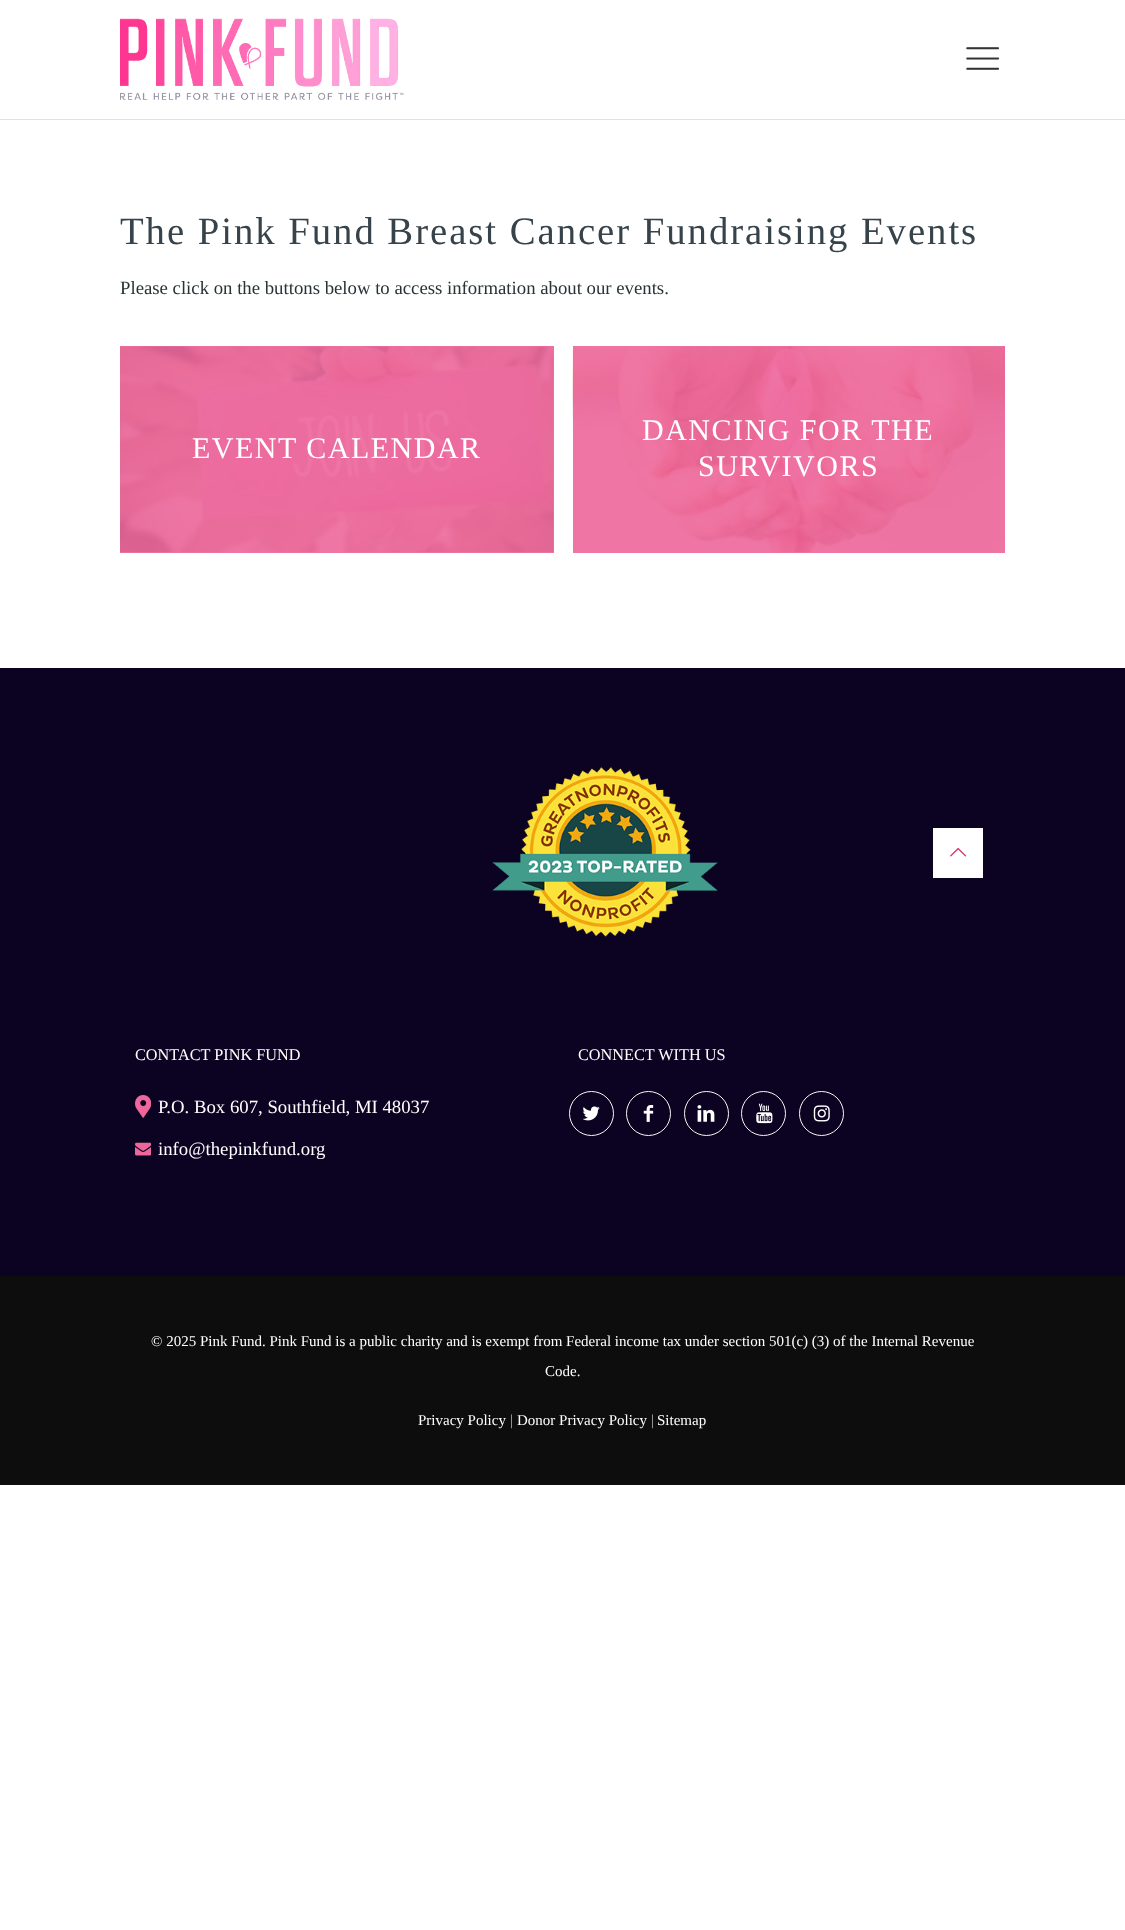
(async () => {
  const canvas = document.querySelector("canvas");
  canvas.width = 1125;
  canvas.height = 1930;
  const ctx = canvas.getContext("2d");
  ctx.miterLimit = 4;
  ctx.fontKerning = "normal";
  async function loadImage(src) {
    const img = new Image();
    img.src = src;
    await img.decode();
    return img;
  }

  ctx.fillStyle = "#ffffff";
  ctx.fillRect(0, 0, 1125, 1930);
  for (const [x, y, w, h, color] of [
    [573, 346, 432, 207, "#ef76a5"],
    [120, 346, 434, 207, "#ef76a5"],
    [0, 119, 1125, 1, "#e1e1e1"],
  ]) {
    ctx.fillStyle = color;
    ctx.fillRect(x, y, w, h);
  }
  ctx.drawImage(await loadImage("img/1.png"), 120, 18, 284, 82);
  ctx.drawImage(await loadImage("img/2.png"), 966, 47, 33, 23);
  ctx.drawImage(await loadImage("img/3.png"), 120, 346, 434, 207);
  ctx.drawImage(await loadImage("img/4.png"), 572, 346, 433, 207);
  ctx.fillStyle = "#0c0323";
  ctx.fillRect(0, 668, 1125, 608);
  ctx.drawImage(await loadImage("img/5.png"), 492, 767, 226, 170);
  ctx.drawImage(await loadImage("img/6.png"), 135, 1095, 16, 23);
  ctx.drawImage(await loadImage("img/7.png"), 135, 1142, 16, 14);
  ctx.fillStyle = "#ffffff";
  ctx.fillRect(933, 828, 50, 50);
  ctx.drawImage(await loadImage("img/8.png"), 950, 847, 17, 10);
  ctx.beginPath();
  ctx.arc(591.5, 1113.5, 22, 0, Math.PI * 2);
  ctx.strokeStyle = "#fff4f4";
  ctx.stroke();
  ctx.drawImage(await loadImage("img/9.png"), 582, 1106, 18, 15);
  ctx.beginPath();
  ctx.arc(648.5, 1113.5, 22, 0, Math.PI * 2);
  ctx.stroke();
  ctx.drawImage(await loadImage("img/10.png"), 643, 1105, 11, 17);
  ctx.beginPath();
  ctx.arc(706.5, 1113.5, 22, 0, Math.PI * 2);
  ctx.stroke();
  ctx.drawImage(await loadImage("img/11.png"), 697, 1105, 18, 17);
  ctx.beginPath();
  ctx.arc(763.5, 1113.5, 22, 0, Math.PI * 2);
  ctx.stroke();
  ctx.drawImage(await loadImage("img/12.png"), 756, 1103, 17, 21);
  ctx.beginPath();
  ctx.arc(821.5, 1113.5, 22, 0, Math.PI * 2);
  ctx.stroke();
  ctx.drawImage(await loadImage("img/13.png"), 813, 1105, 17, 17);
  ctx.fillStyle = "#0d0d0d";
  ctx.fillRect(0, 1276, 1125, 209);
  ctx.letterSpacing = "1.95px";
  ctx.font = "38.75px Liberation Serif";
  ctx.fillStyle = "#37434b";
  ctx.fillText("The Pink Fund Breast Cancer Fundraising Events", 120, 244);
  ctx.letterSpacing = "0px";
  ctx.font = "18.75px Liberation Serif";
  ctx.fillStyle = "#283335";
  ctx.fillText("Please click on the buttons below to access information about our events.", 120, 294);
  ctx.letterSpacing = "1.5px";
  ctx.font = "30px Liberation Serif";
  ctx.fillStyle = "#ffffff";
  for (const [text, x, y] of [
    ["EVENT CALENDAR", 192, 458],
    ["DANCING FOR THE", 642, 440],
    ["SURVIVORS", 698, 476],
  ]) {
    ctx.fillText(text, x, y);
  }
  ctx.letterSpacing = "0px";
  ctx.font = "16.25px Liberation Serif";
  ctx.fillText("CONTACT PINK FUND", 135, 1060);
  ctx.font = "18.75px Liberation Serif";
  ctx.fillText("P.O. Box 607, Southfield, MI 48037", 158, 1113);
  ctx.fillText("info@thepinkfund.org", 158, 1155);
  ctx.font = "16.25px Liberation Serif";
  ctx.fillText("CONNECT WITH US", 578, 1060);
  ctx.font = "15px Liberation Serif";
  for (const [text, x, y] of [
    ["© 2025 Pink Fund. Pink Fund is a public charity and is exempt from Federal income tax under section 501(c) (3) of the Internal Revenue", 151, 1346],
    ["Code.", 545, 1376],
    ["Privacy Policy", 418, 1425],
  ]) {
    ctx.fillText(text, x, y);
  }
  ctx.fillStyle = "#bababa";
  ctx.fillText("|", 510, 1425);
  ctx.fillStyle = "#ffffff";
  ctx.fillText("Donor Privacy Policy", 517, 1425);
  ctx.fillStyle = "#bababa";
  ctx.fillText("|", 651, 1425);
  ctx.fillStyle = "#ffffff";
  ctx.fillText("Sitemap", 657, 1425);
})();
